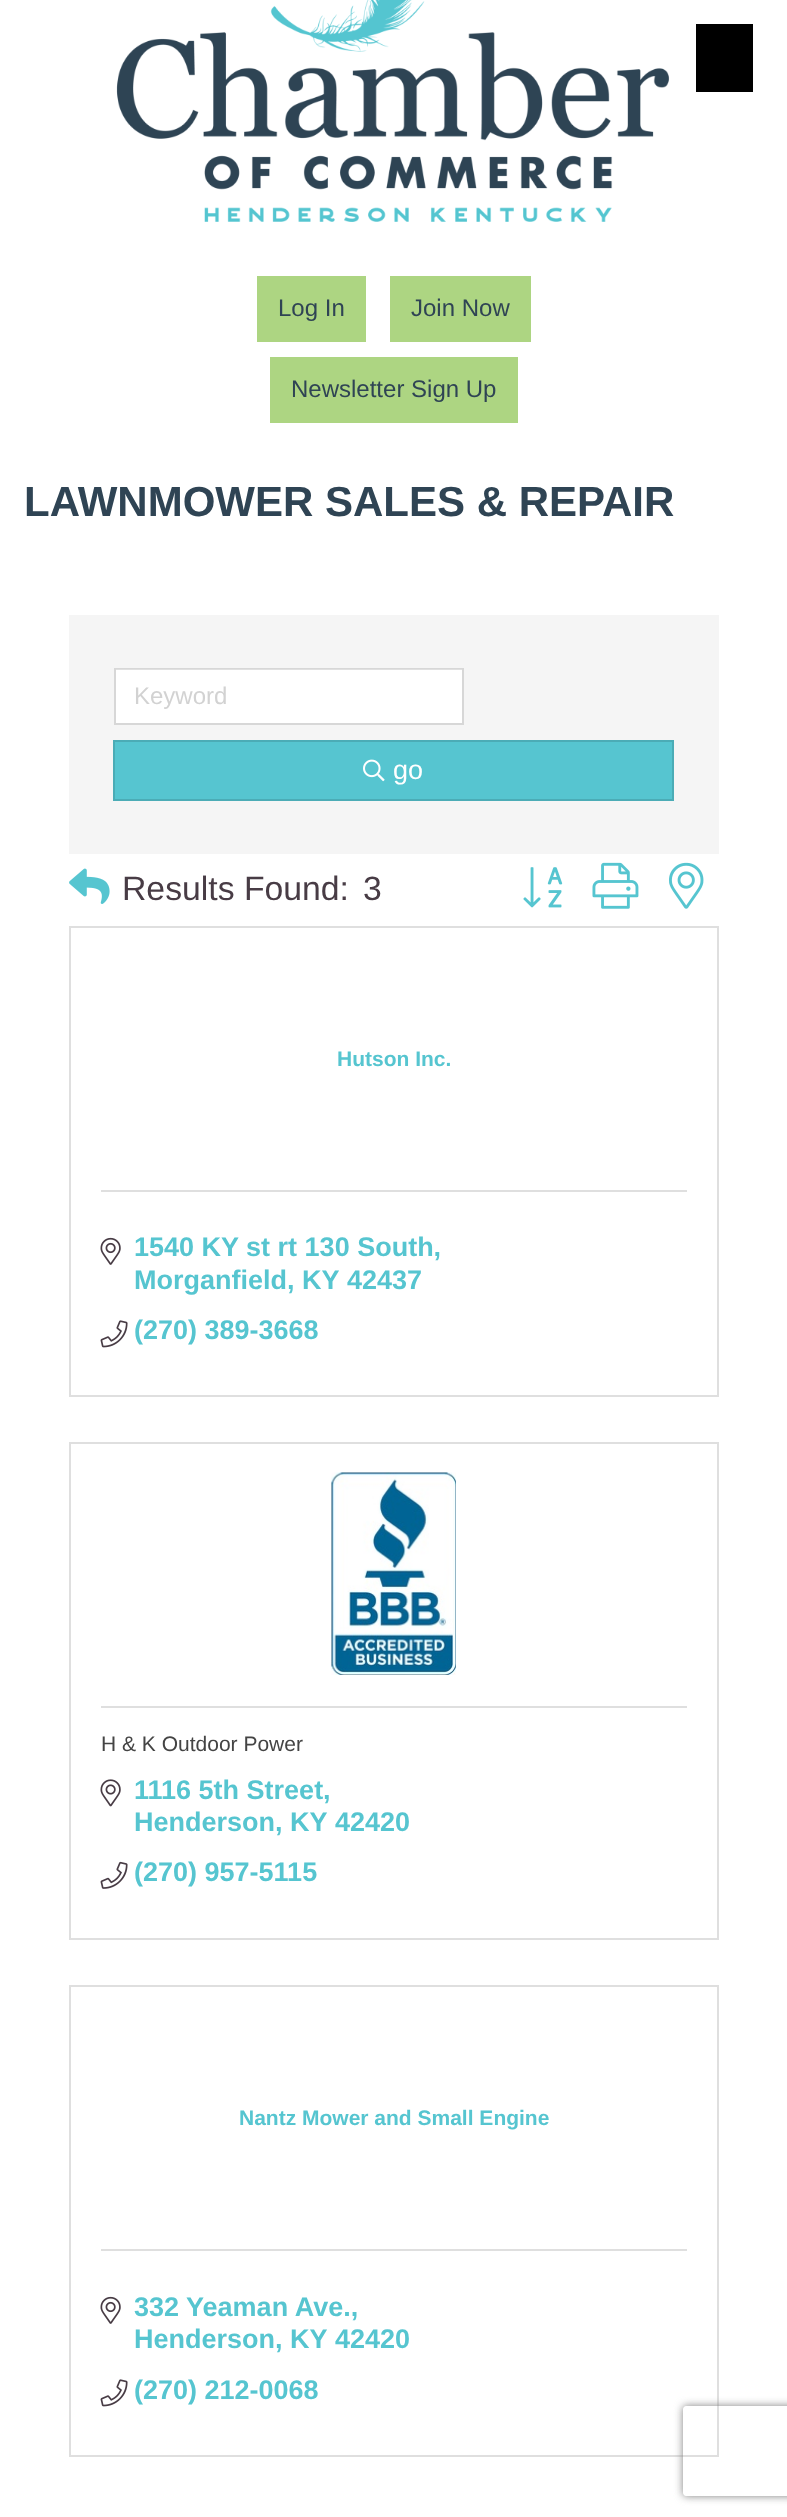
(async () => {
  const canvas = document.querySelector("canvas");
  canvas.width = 787;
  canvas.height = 2517;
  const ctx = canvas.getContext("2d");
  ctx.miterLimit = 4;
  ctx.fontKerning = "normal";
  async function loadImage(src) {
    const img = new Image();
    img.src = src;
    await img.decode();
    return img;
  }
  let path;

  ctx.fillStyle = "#ffffff";
  ctx.fillRect(0, 0, 787, 2517);
  ctx.fillStyle = "#000000";
  ctx.fillRect(696, 24, 57, 68);
  ctx.drawImage(await loadImage("img/1.png"), 116, 0, 554, 222);
  for (const [x, y, w, h, color] of [
    [257, 276, 109, 66, "#add582"],
    [390, 276, 141, 66, "#add582"],
    [270, 357, 248, 66, "#add582"],
    [69, 615, 650, 239, "#f5f5f5"],
    [116, 669, 346, 54, "#ffffff"],
  ]) {
    ctx.fillStyle = color;
    ctx.fillRect(x, y, w, h);
  }
  ctx.strokeStyle = "rgba(0, 0, 0, 0.12)";
  ctx.lineWidth = 2;
  ctx.strokeRect(115, 669, 348, 55);
  ctx.fillStyle = "#56c5d0";
  ctx.beginPath();
  ctx.rect(114, 741, 559, 59);
  ctx.fill();
  ctx.strokeStyle = "#4bacb6";
  ctx.stroke();
  ctx.drawImage(await loadImage("img/2.png"), 363, 759, 22, 23);
  ctx.drawImage(await loadImage("img/3.png"), 69, 868, 41, 36);
  ctx.drawImage(await loadImage("img/4.png"), 523, 867, 40, 41);
  ctx.drawImage(await loadImage("img/5.png"), 592, 862, 47, 47);
  ctx.drawImage(await loadImage("img/6.png"), 669, 862, 35, 47);
  ctx.strokeStyle = "#dfdfdf";
  ctx.strokeRect(70, 927, 648, 469);
  ctx.fillStyle = "#dfdfdf";
  ctx.fillRect(101, 1190, 586, 2);
  ctx.drawImage(await loadImage("img/7.png"), 100, 1237, 21, 28);
  ctx.drawImage(await loadImage("img/8.png"), 100, 1320, 28, 28);
  ctx.strokeRect(70, 1443, 648, 496);
  ctx.drawImage(await loadImage("img/9.png"), 331, 1472, 125, 203);
  ctx.fillRect(101, 1706, 586, 2);
  ctx.drawImage(await loadImage("img/10.png"), 100, 1779, 21, 28);
  ctx.drawImage(await loadImage("img/11.png"), 100, 1861, 28, 28);
  ctx.strokeRect(70, 1986, 648, 470);
  ctx.fillRect(101, 2249, 586, 2);
  ctx.drawImage(await loadImage("img/7.png"), 100, 2296, 21, 28);
  ctx.drawImage(await loadImage("img/8.png"), 100, 2379, 28, 28);
  ctx.save();
  path = new Path2D("M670 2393H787V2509H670ZM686 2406H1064C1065.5 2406 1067 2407.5 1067 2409V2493C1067 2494.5 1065.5 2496 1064 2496H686C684.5 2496 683 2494.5 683 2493V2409C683 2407.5 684.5 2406 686 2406Z");
  ctx.clip(path, "evenodd");
  ctx.fillStyle = "#808080";
  ctx.filter = "blur(4px)";
  ctx.beginPath();
  ctx.roundRect(683, 2406, 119, 90, 3);
  ctx.fill();
  ctx.filter = "none";
  ctx.restore();
  ctx.font = "24px Liberation Sans";
  ctx.fillStyle = "#2f4454";
  for (const [text, x, y] of [
    ["Log In", 278, 316],
    ["Join Now", 411, 316],
    ["Newsletter Sign Up", 291, 397],
  ]) {
    ctx.fillText(text, x, y);
  }
  ctx.font = "bold 42px Liberation Sans";
  ctx.fillText("LAWNMOWER SALES & REPAIR", 24, 516);
  ctx.font = "24px Liberation Sans";
  ctx.fillStyle = "#d2d2d2";
  ctx.fillText("Keyword", 134, 704);
  ctx.font = "27px Liberation Sans";
  ctx.fillStyle = "#ffffff";
  ctx.fillText("go", 393, 779);
  ctx.font = "33.75px Liberation Sans";
  ctx.fillStyle = "#483c45";
  ctx.fillText("Results Found:", 122, 900);
  ctx.fillText("3", 363, 900);
  ctx.font = "bold 21px Liberation Sans";
  ctx.fillStyle = "#56c5d0";
  ctx.fillText("Hutson Inc.", 337, 1066);
  ctx.font = "bold 27px Liberation Sans";
  for (const [text, x, y] of [
    ["1540 KY st rt 130 South,", 134, 1256],
    ["Morganfield, KY", 134, 1289],
    ["42437", 347, 1289],
    ["(270) 389-3668", 134, 1339],
  ]) {
    ctx.fillText(text, x, y);
  }
  ctx.font = "21px Liberation Sans";
  ctx.fillStyle = "#444444";
  ctx.fillText("H & K Outdoor Power", 101, 1751);
  ctx.font = "bold 27px Liberation Sans";
  ctx.fillStyle = "#56c5d0";
  for (const [text, x, y] of [
    ["1116 5th Street,", 134, 1799],
    ["Henderson, KY", 134, 1831],
    ["42420", 335, 1831],
    ["(270) 957-5115", 134, 1881],
  ]) {
    ctx.fillText(text, x, y);
  }
  ctx.font = "bold 21px Liberation Sans";
  ctx.fillText("Nantz Mower and Small Engine", 239, 2125);
  ctx.font = "bold 27px Liberation Sans";
  for (const [text, x, y] of [
    ["332 Yeaman Ave.,", 134, 2316],
    ["Henderson, KY", 134, 2348],
    ["42420", 335, 2348],
    ["(270) 212-0068", 134, 2399],
  ]) {
    ctx.fillText(text, x, y);
  }
})();
